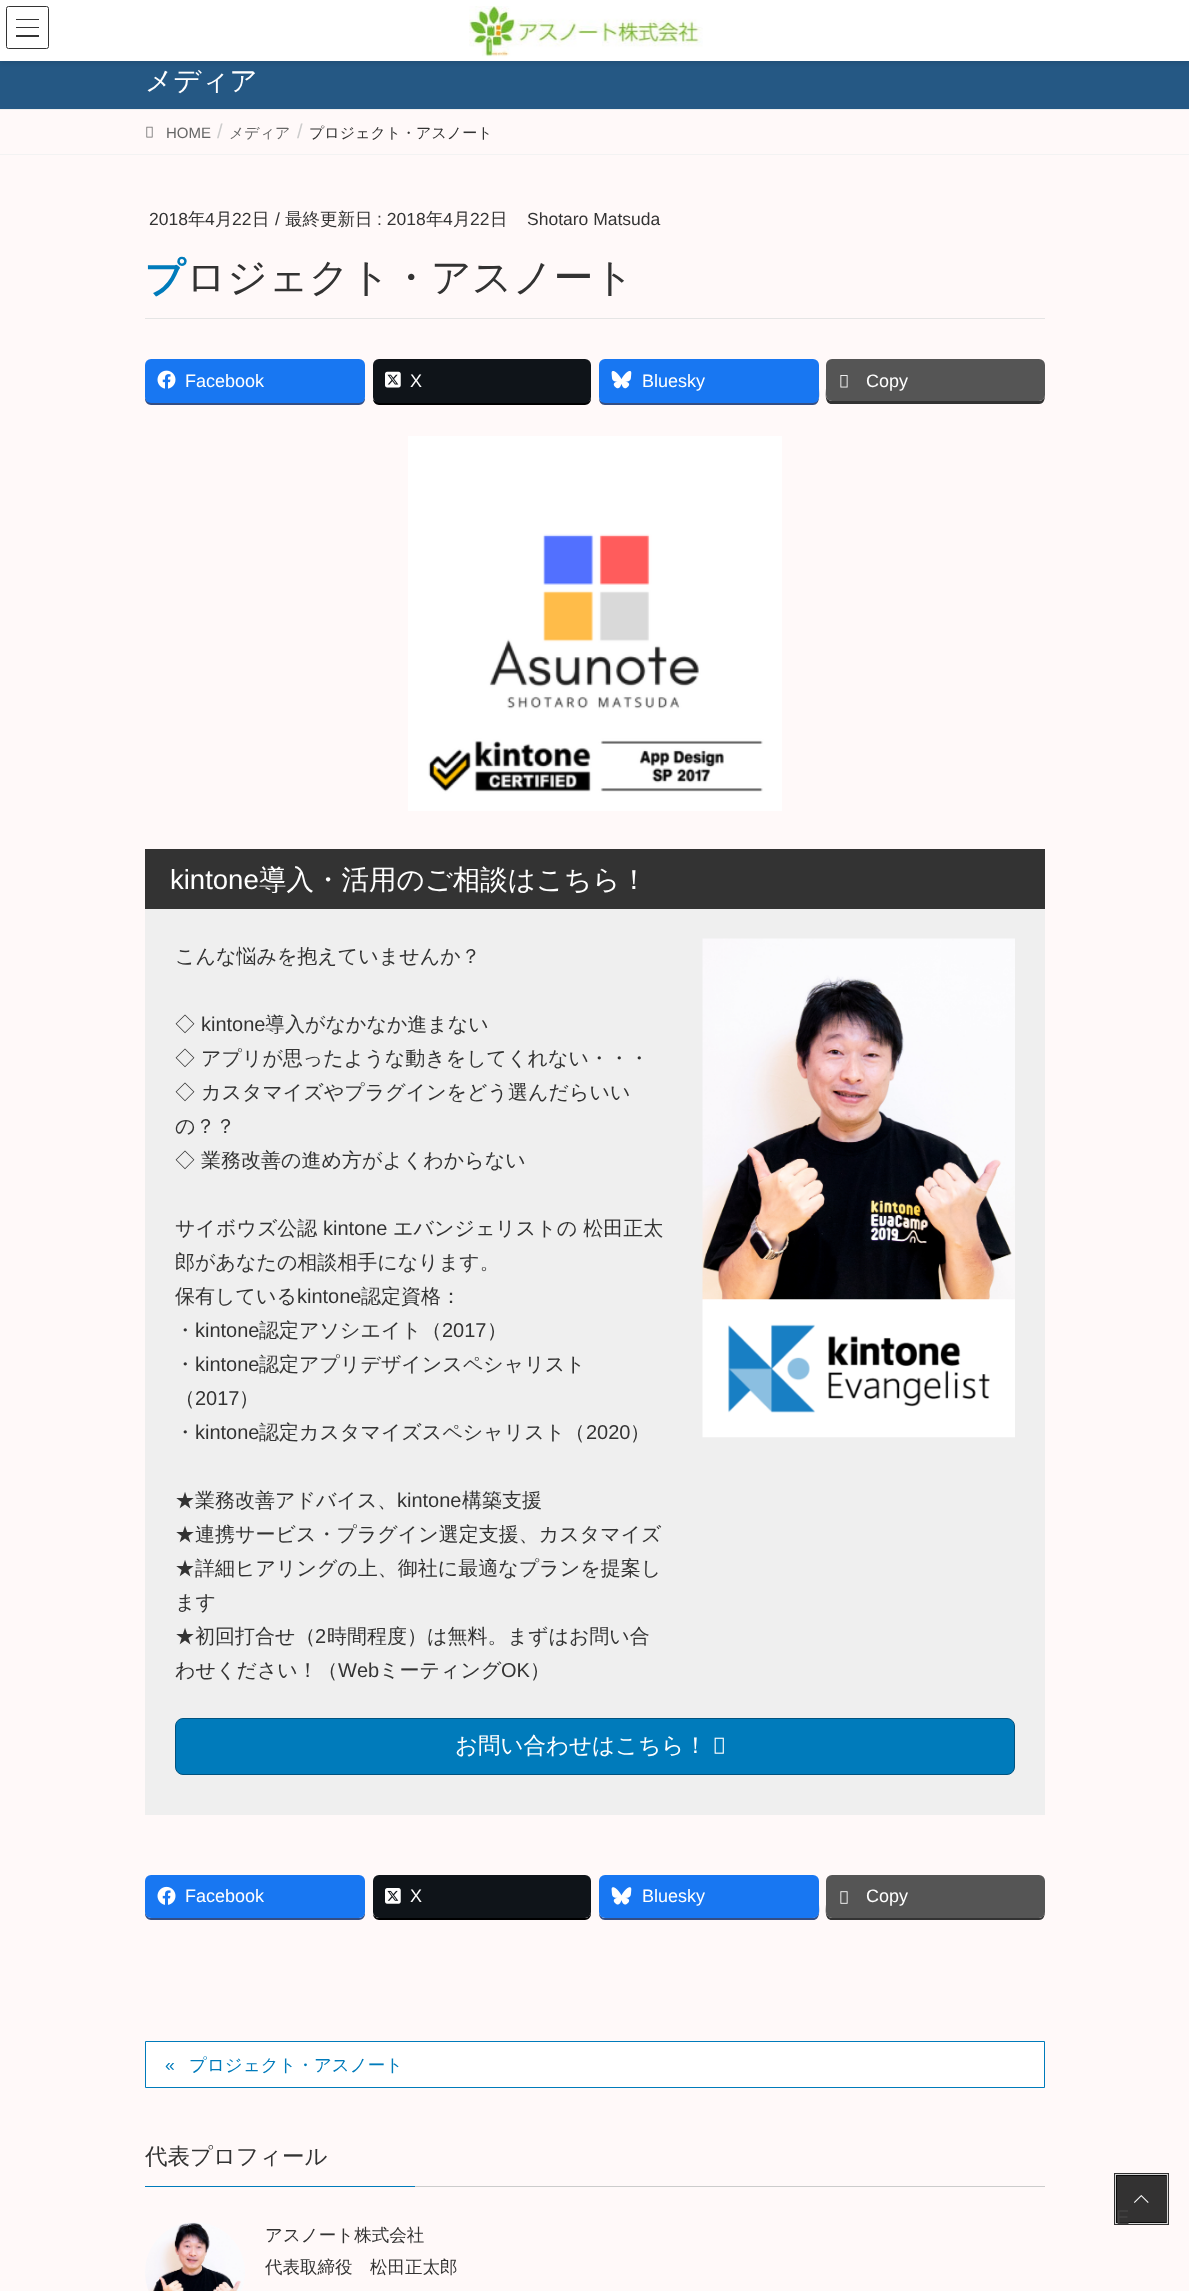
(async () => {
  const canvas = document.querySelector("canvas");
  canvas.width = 1189;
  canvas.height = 2291;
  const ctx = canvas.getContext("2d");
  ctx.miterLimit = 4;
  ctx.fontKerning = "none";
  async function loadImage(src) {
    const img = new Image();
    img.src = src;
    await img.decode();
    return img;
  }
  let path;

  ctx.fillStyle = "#fff9f9";
  ctx.fillRect(0, 0, 1189, 2291);
  ctx.fillStyle = "#255884";
  ctx.fillRect(0, 61, 1189, 48);
  ctx.fillStyle = "rgba(0, 0, 0, 0.1)";
  ctx.filter = "blur(2px)";
  ctx.beginPath();
  ctx.rect(0, 1, 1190, 62);
  ctx.fill();
  ctx.filter = "none";
  ctx.fillStyle = "#ffffff";
  ctx.fillRect(0, 0, 1189, 61);
  ctx.drawImage(await loadImage("img/1.png"), 469, 6, 234, 51);
  for (const [x, y, w, h, color] of [
    [16, 19, 23, 1, "#333333"],
    [16, 27, 23, 1, "#333333"],
    [16, 35, 23, 2, "#333333"],
  ]) {
    ctx.fillStyle = color;
    ctx.fillRect(x, y, w, h);
  }
  ctx.beginPath();
  ctx.roundRect(6.5, 6.5, 42, 42, 2);
  ctx.strokeStyle = "#333333";
  ctx.stroke();
  ctx.fillStyle = "#eeeeee";
  ctx.fillRect(0, 109, 1189, 1);
  ctx.fillStyle = "#f3f3f3";
  ctx.fillRect(0, 154, 1189, 1);
  ctx.drawImage(await loadImage("img/2.png"), 146, 126, 7, 12);
  ctx.fillStyle = "#e5e5e5";
  ctx.fillRect(145, 318, 900, 1);
  ctx.fillStyle = "#344e84";
  path = new Path2D("M145 396V399C145 402 148 405 151 405H359C362 405 365 402 365 399V396C365 400 362 402 359 402H151C148 402 145 400 145 396Z");
  ctx.fill(path);
  ctx.fillStyle = "#1877f2";
  ctx.beginPath();
  ctx.roundRect(145, 359, 220, 44, 6);
  ctx.fill();
  ctx.drawImage(await loadImage("img/3.png"), 157, 370, 19, 19);
  ctx.fillStyle = "#000000";
  path = new Path2D("M373 399C373 402 376 405 379 405H585C588 405 591 402 591 399V398C590 401 588 402 585 402H379C376 402 374 401 373 399Z");
  ctx.fill(path);
  ctx.fillStyle = "#0f1419";
  ctx.beginPath();
  ctx.roundRect(373, 359, 218, 44, 6);
  ctx.fill();
  ctx.drawImage(await loadImage("img/4.png"), 385, 371, 16, 17);
  ctx.fillStyle = "#344e84";
  path = new Path2D("M599 398C599 402 601 405 605 405H813C821 405 819 393 819 388V365V396C819 400 816 402 812 402H605C602 402 600 401 599 398Z");
  ctx.fill(path);
  ctx.fillStyle = "#1877f2";
  ctx.beginPath();
  ctx.roundRect(599, 359, 220, 44, 6);
  ctx.fill();
  ctx.drawImage(await loadImage("img/5.png"), 611, 371, 21, 18);
  ctx.fillStyle = "#333333";
  path = new Path2D("M826 365V388C826 393 824 404 832 404H1039C1044 404 1045 399 1045 395C1045 398 1042 401 1039 401H832C829 401 826 398 826 395Z");
  ctx.fill(path);
  ctx.fillStyle = "#555555";
  ctx.beginPath();
  ctx.roundRect(826, 359, 219, 42, 6);
  ctx.fill();
  ctx.drawImage(await loadImage("img/6.png"), 840, 375, 8, 13);
  ctx.drawImage(await loadImage("img/7.png"), 408, 436, 374, 375);
  ctx.fillStyle = "#efefef";
  ctx.fillRect(145, 909, 900, 906);
  ctx.fillStyle = "#333333";
  ctx.fillRect(145, 849, 900, 60);
  ctx.drawImage(await loadImage("img/8.png"), 702, 938, 313, 500);
  ctx.fillStyle = "#007bbb";
  ctx.beginPath();
  ctx.roundRect(175.5, 1718.5, 839, 56, 7.5);
  ctx.fill();
  ctx.strokeStyle = "#005380";
  ctx.stroke();
  ctx.drawImage(await loadImage("img/9.png"), 714, 1737, 10, 17);
  ctx.fillStyle = "#344e84";
  path = new Path2D("M145 1911V1914C145 1917 148 1920 151 1920H359C362 1920 365 1917 365 1914V1911C365 1915 362 1918 359 1918H151C148 1918 145 1915 145 1911Z");
  ctx.fill(path);
  ctx.fillStyle = "#1877f2";
  ctx.beginPath();
  ctx.roundRect(145, 1875, 220, 43, 6);
  ctx.fill();
  ctx.drawImage(await loadImage("img/10.png"), 157, 1886, 19, 19);
  ctx.fillStyle = "#000000";
  path = new Path2D("M373 1914C373 1917 376 1920 379 1920H585C588 1920 591 1917 591 1914V1913C590 1916 588 1918 585 1918H379C376 1918 374 1916 373 1914Z");
  ctx.fill(path);
  ctx.fillStyle = "#0f1419";
  ctx.beginPath();
  ctx.roundRect(373, 1875, 218, 43, 6);
  ctx.fill();
  ctx.drawImage(await loadImage("img/11.png"), 385, 1888, 16, 16);
  ctx.fillStyle = "#344e84";
  path = new Path2D("M599 1913C599 1917 601 1920 605 1920H813C821 1920 819 1909 819 1904V1882V1911C819 1915 816 1918 812 1918H605C602 1918 600 1916 599 1913Z");
  ctx.fill(path);
  ctx.fillStyle = "#1877f2";
  ctx.beginPath();
  ctx.roundRect(599, 1875, 220, 43, 6);
  ctx.fill();
  ctx.drawImage(await loadImage("img/12.png"), 611, 1887, 21, 18);
  ctx.fillStyle = "#333333";
  path = new Path2D("M826 1882V1904C826 1909 824 1920 832 1920H1039C1044 1920 1045 1915 1045 1911C1045 1915 1042 1918 1039 1918H832C829 1918 826 1915 826 1911Z");
  ctx.fill(path);
  ctx.fillStyle = "#555555";
  ctx.beginPath();
  ctx.roundRect(826, 1875, 219, 43, 6);
  ctx.fill();
  ctx.drawImage(await loadImage("img/13.png"), 840, 1891, 8, 13);
  ctx.fillStyle = "#ffffff";
  ctx.beginPath();
  ctx.rect(145.5, 2041.5, 899, 46);
  ctx.fill();
  ctx.strokeStyle = "#007bbb";
  ctx.stroke();
  ctx.fillStyle = "#cccccc";
  ctx.fillRect(415, 2186, 630, 1);
  ctx.fillStyle = "#007bbb";
  ctx.fillRect(145, 2186, 270, 1);
  ctx.drawImage(await loadImage("img/14.png"), 145, 2222, 100, 69);
  ctx.strokeStyle = "#333232";
  ctx.lineWidth = 3;
  ctx.strokeRect(1115.5, 2174.5, 52, 49);
  ctx.strokeStyle = "#d6d6d6";
  ctx.lineWidth = 1;
  ctx.strokeRect(1115.5, 2174.5, 52, 49);
  ctx.fillStyle = "rgba(0, 0, 0, 0.8)";
  ctx.fillRect(1116, 2175, 50, 48);
  ctx.drawImage(await loadImage("img/15.png"), 1134, 2195, 15, 8);
  ctx.font = "500 27.5px WenQuanYi Zen Hei";
  ctx.fillStyle = "#ffffff";
  ctx.fillText("メディア", 145, 90);
  ctx.font = "15px Liberation Sans";
  ctx.fillStyle = "#666666";
  ctx.fillText("HOME", 166, 138);
  ctx.font = "20px Liberation Sans";
  ctx.fillStyle = "#cccccc";
  ctx.fillText("/", 217, 138);
  ctx.font = "500 15px WenQuanYi Zen Hei";
  ctx.fillStyle = "#666666";
  ctx.fillText("メディア", 229, 138);
  ctx.font = "20px Liberation Sans";
  ctx.fillStyle = "#cccccc";
  ctx.fillText("/", 297, 138);
  ctx.font = "500 15px WenQuanYi Zen Hei";
  ctx.fillStyle = "#333333";
  ctx.fillText("プロジェクト・アスノート", 309, 138);
  ctx.font = "17.5px Liberation Sans";
  ctx.fillText("2018", 149, 225);
  ctx.font = "500 17.5px WenQuanYi Zen Hei";
  ctx.fillText("年", 188, 225);
  ctx.font = "17.5px Liberation Sans";
  ctx.fillText("4", 205, 225);
  ctx.font = "500 17.5px WenQuanYi Zen Hei";
  ctx.fillText("月", 215, 225);
  ctx.font = "17.5px Liberation Sans";
  ctx.fillText("22", 232, 225);
  ctx.font = "500 17.5px WenQuanYi Zen Hei";
  ctx.fillText("日", 252, 225);
  ctx.font = "17.5px Liberation Sans";
  ctx.fillText("/", 275, 225);
  ctx.font = "500 17.5px WenQuanYi Zen Hei";
  ctx.fillText("最終更新日", 285, 225);
  ctx.font = "17.5px Liberation Sans";
  ctx.fillText(": 2018", 377, 225);
  ctx.font = "500 17.5px WenQuanYi Zen Hei";
  ctx.fillText("年", 426, 225);
  ctx.font = "17.5px Liberation Sans";
  ctx.fillText("4", 443, 225);
  ctx.font = "500 17.5px WenQuanYi Zen Hei";
  ctx.fillText("月", 453, 225);
  ctx.font = "17.5px Liberation Sans";
  ctx.fillText("22", 470, 225);
  ctx.font = "500 17.5px WenQuanYi Zen Hei";
  ctx.fillText("日", 490, 225);
  ctx.font = "17.5px Liberation Sans";
  ctx.fillText("Shotaro Matsuda", 527, 225);
  ctx.font = "900 40px Noto Sans";
  ctx.fillStyle = "#007bbb";
  ctx.fillText("プ", 145, 291);
  ctx.font = "500 40px WenQuanYi Zen Hei";
  ctx.fillStyle = "#333333";
  ctx.fillText("ロジェクト・アスノート", 186, 291);
  ctx.font = "18px Liberation Sans";
  ctx.fillStyle = "#ffffff";
  for (const [text, x, y] of [
    ["Facebook", 185, 387],
    ["X", 410, 387],
    ["Bluesky", 642, 387],
    ["Copy", 866, 387],
  ]) {
    ctx.fillText(text, x, y);
  }
  ctx.font = "27.5px Liberation Sans";
  ctx.fillText("kintone", 170, 889);
  ctx.font = "500 27.5px WenQuanYi Zen Hei";
  ctx.fillText("導入・活用のご相談はこちら！", 259, 889);
  ctx.font = "500 20px WenQuanYi Zen Hei";
  ctx.fillStyle = "#333333";
  ctx.fillText("こんな悩みを抱えていませんか？", 175, 963);
  ctx.fillText("◇", 175, 1031);
  ctx.font = "20px Liberation Sans";
  ctx.fillText("kintone", 201, 1031);
  ctx.font = "500 20px WenQuanYi Zen Hei";
  for (const [text, x, y] of [
    ["導入がなかなか進まない", 265, 1031],
    ["◇ アプリが思ったような動きをしてくれない・・・", 175, 1065],
    ["◇ カスタマイズやプラグインをどう選んだらいい", 175, 1099],
    ["の？？", 175, 1133],
    ["◇ 業務改善の進め方がよくわからない", 175, 1167],
    ["サイボウズ公認", 175, 1235],
  ]) {
    ctx.fillText(text, x, y);
  }
  ctx.font = "20px Liberation Sans";
  ctx.fillText("kintone", 323, 1235);
  ctx.font = "500 20px WenQuanYi Zen Hei";
  for (const [text, x, y] of [
    ["エバンジェリストの 松田正太", 393, 1235],
    ["郎があなたの相談相手になります。", 175, 1269],
    ["保有している", 175, 1303],
  ]) {
    ctx.fillText(text, x, y);
  }
  ctx.font = "20px Liberation Sans";
  ctx.fillText("kintone", 297, 1303);
  ctx.font = "500 20px WenQuanYi Zen Hei";
  ctx.fillText("認定資格：", 361, 1303);
  ctx.fillText("・", 175, 1337);
  ctx.font = "20px Liberation Sans";
  ctx.fillText("kintone", 195, 1337);
  ctx.font = "500 20px WenQuanYi Zen Hei";
  ctx.fillText("認定アソシエイト（", 259, 1337);
  ctx.font = "20px Liberation Sans";
  ctx.fillText("2017", 442, 1337);
  ctx.font = "500 20px WenQuanYi Zen Hei";
  ctx.fillText("）", 487, 1337);
  ctx.fillText("・", 175, 1371);
  ctx.font = "20px Liberation Sans";
  ctx.fillText("kintone", 195, 1371);
  ctx.font = "500 20px WenQuanYi Zen Hei";
  ctx.fillText("認定アプリデザインスペシャリスト", 259, 1371);
  ctx.fillText("（", 175, 1405);
  ctx.font = "20px Liberation Sans";
  ctx.fillText("2017", 195, 1405);
  ctx.font = "500 20px WenQuanYi Zen Hei";
  ctx.fillText("）", 239, 1405);
  ctx.fillText("・", 175, 1439);
  ctx.font = "20px Liberation Sans";
  ctx.fillText("kintone", 195, 1439);
  ctx.font = "500 20px WenQuanYi Zen Hei";
  ctx.fillText("認定カスタマイズスペシャリスト（", 259, 1439);
  ctx.font = "20px Liberation Sans";
  ctx.fillText("2020", 586, 1439);
  ctx.font = "500 20px WenQuanYi Zen Hei";
  ctx.fillText("）", 630, 1439);
  ctx.fillText("★業務改善アドバイス、", 175, 1507);
  ctx.font = "20px Liberation Sans";
  ctx.fillText("kintone", 397, 1507);
  ctx.font = "500 20px WenQuanYi Zen Hei";
  for (const [text, x, y] of [
    ["構築支援", 462, 1507],
    ["★連携サービス・プラグイン選定支援、カスタマイズ", 175, 1541],
    ["★詳細ヒアリングの上、御社に最適なプランを提案し", 175, 1575],
    ["ます", 175, 1609],
    ["★初回打合せ（", 175, 1643],
  ]) {
    ctx.fillText(text, x, y);
  }
  ctx.font = "20px Liberation Sans";
  ctx.fillText("2", 315, 1643);
  ctx.font = "500 20px WenQuanYi Zen Hei";
  ctx.fillText("時間程度）は無料。まずはお問い合", 327, 1643);
  ctx.fillText("わせください！（", 175, 1677);
  ctx.font = "20px Liberation Sans";
  ctx.fillText("Web", 338, 1677);
  ctx.font = "500 20px WenQuanYi Zen Hei";
  ctx.fillText("ミーティング", 379, 1677);
  ctx.font = "20px Liberation Sans";
  ctx.fillText("OK", 501, 1677);
  ctx.font = "500 20px WenQuanYi Zen Hei";
  ctx.fillText("）", 530, 1677);
  ctx.font = "500 22.5px WenQuanYi Zen Hei";
  ctx.fillStyle = "#ffffff";
  ctx.fillText("お問い合わせはこちら！", 455, 1753);
  ctx.font = "18px Liberation Sans";
  for (const [text, x, y] of [
    ["Facebook", 185, 1902],
    ["X", 410, 1902],
    ["Bluesky", 642, 1902],
    ["Copy", 866, 1902],
  ]) {
    ctx.fillText(text, x, y);
  }
  ctx.font = "17.5px Liberation Sans";
  ctx.fillStyle = "#007bbb";
  ctx.fillText("«", 165, 2071);
  ctx.font = "500 17.5px WenQuanYi Zen Hei";
  ctx.fillText("プロジェクト・アスノート", 189, 2071);
  ctx.font = "500 22.5px WenQuanYi Zen Hei";
  ctx.fillStyle = "#333333";
  ctx.fillText("代表プロフィール", 145, 2164);
  ctx.font = "500 17.5px WenQuanYi Zen Hei";
  ctx.fillText("アスノート株式会社", 265, 2241);
  ctx.fillText("代表取締役　松田正太郎", 265, 2273);
  ctx.font = "20px Liberation Sans";
  ctx.fillStyle = "#434242";
  ctx.fillText("E", 1116, 2224);
})();
